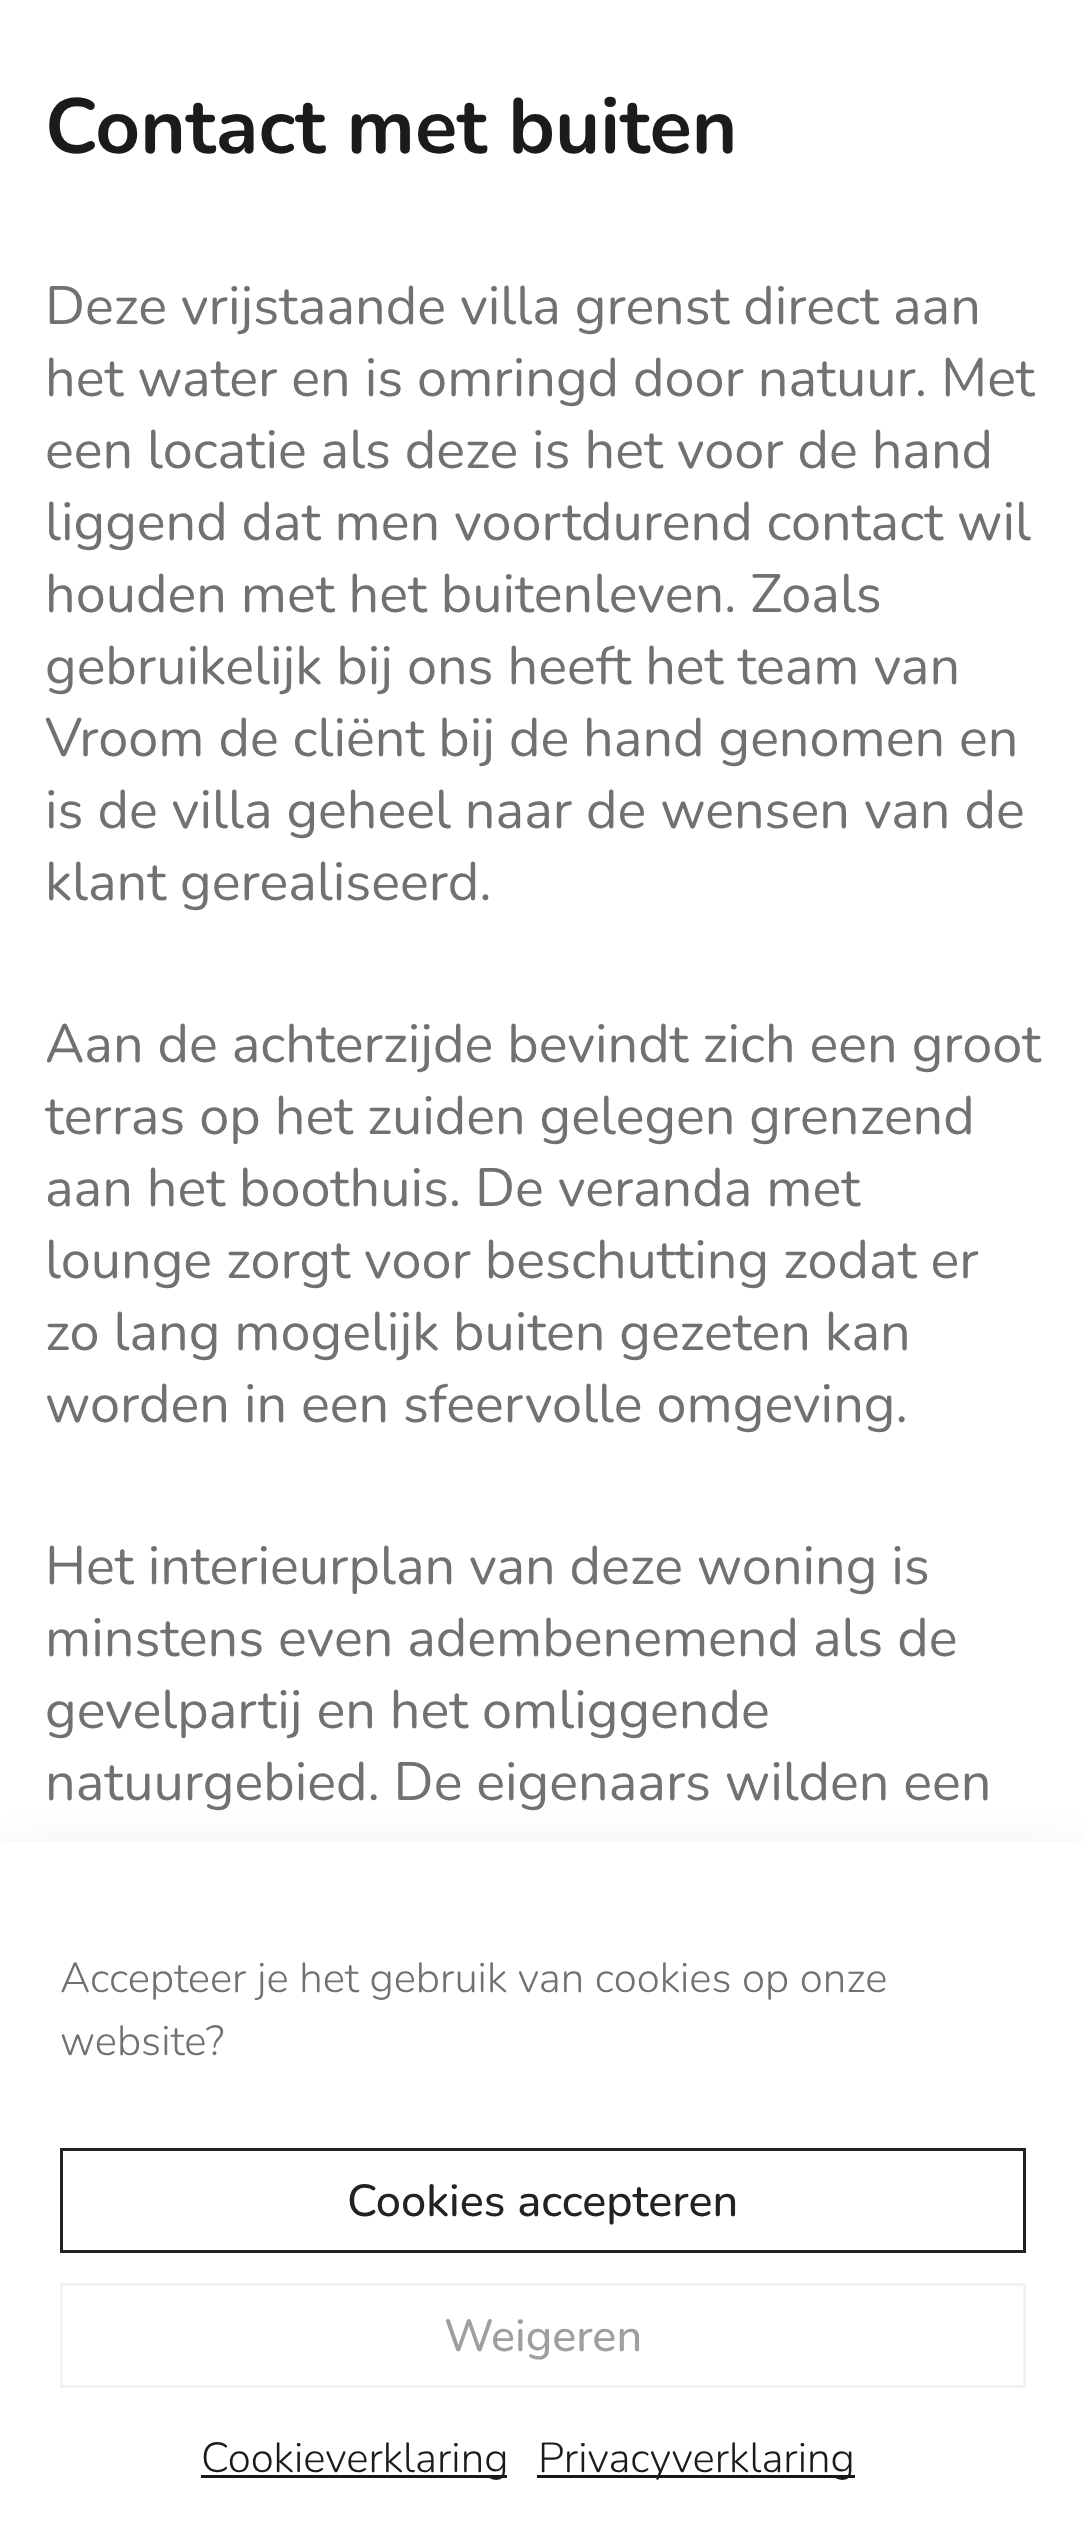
(async () => {
  const canvas = document.querySelector("canvas");
  canvas.width = 1085;
  canvas.height = 2541;
  const ctx = canvas.getContext("2d");
  ctx.miterLimit = 4;
  ctx.fontKerning = "normal";

  ctx.fillStyle = "#ffffff";
  ctx.fillRect(0, 0, 1085, 2541);
  ctx.fillStyle = "rgba(0, 0, 0, 0.19)";
  ctx.filter = "blur(30px)";
  ctx.beginPath();
  ctx.rect(0, 1872, 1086, 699);
  ctx.fill();
  ctx.filter = "none";
  ctx.fillStyle = "#ffffff";
  ctx.fillRect(0, 1842, 1085, 699);
  ctx.strokeStyle = "#222223";
  ctx.lineWidth = 3;
  ctx.strokeRect(61.5, 2149.5, 963, 102);
  ctx.strokeStyle = "#f2f2f2";
  ctx.strokeRect(61.5, 2284.5, 963, 102);
  ctx.fillStyle = "#181818";
  ctx.fillRect(201, 2475, 306, 3);
  ctx.fillRect(537, 2475, 318, 3);
  ctx.font = "bold 78px Nunito";
  ctx.fillStyle = "#1b1b1b";
  ctx.fillText("Contact met buiten", 45, 153);
  ctx.font = "54px Nunito";
  ctx.fillStyle = "#707172";
  for (const [text, x, y] of [
    ["Deze vrijstaande villa grenst direct aan", 45, 324],
    ["het water en is omringd door natuur. Met", 45, 396],
    ["een locatie als deze is het voor de hand", 45, 468],
    ["liggend dat men voortdurend contact wil", 45, 540],
    ["houden met het buitenleven. Zoals", 45, 612],
    ["gebruikelijk bij ons heeft het team van", 45, 684],
    ["Vroom de cliënt bij de hand genomen en", 45, 756],
    ["is de villa geheel naar de wensen van de", 45, 828],
    ["klant gerealiseerd.", 45, 900],
    ["Aan de achterzijde bevindt zich een groot", 45, 1062],
    ["terras op het zuiden gelegen grenzend", 45, 1134],
    ["aan het boothuis. De veranda met", 45, 1206],
    ["lounge zorgt voor beschutting zodat er", 45, 1278],
    ["zo lang mogelijk buiten gezeten kan", 45, 1350],
    ["worden in een sfeervolle omgeving.", 45, 1422],
    ["Het interieurplan van deze woning is", 45, 1584],
    ["minstens even adembenemend als de", 45, 1656],
    ["gevelpartij en het omliggende", 45, 1728],
    ["natuurgebied. De eigenaars wilden een", 45, 1800],
  ]) {
    ctx.fillText(text, x, y);
  }
  ctx.font = "300 42px Nunito";
  ctx.fillText("Accepteer je het gebruik van cookies op onze", 60, 1992);
  ctx.fillText("website?", 60, 2055);
  ctx.font = "500 45px Nunito";
  ctx.fillStyle = "#222223";
  ctx.fillText("Cookies accepteren", 347, 2216);
  ctx.fillStyle = "#9d9fa0";
  ctx.fillText("Weigeren", 444, 2351);
  ctx.font = "300 42px Nunito";
  ctx.fillStyle = "#1b1b1b";
  ctx.fillText("Cookieverklaring", 201, 2472);
  ctx.fillText("Privacyverklaring", 538, 2472);
})();
